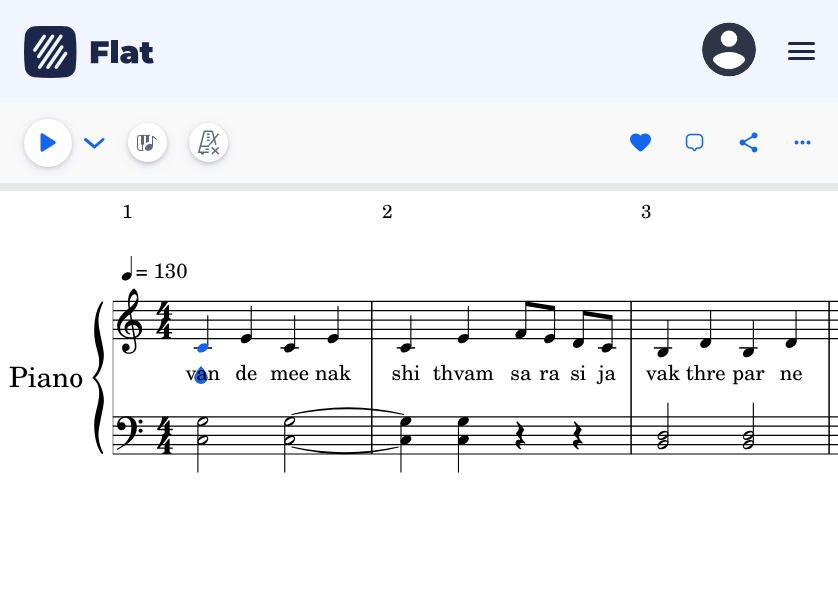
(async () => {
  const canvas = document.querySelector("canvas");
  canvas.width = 838;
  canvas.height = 616;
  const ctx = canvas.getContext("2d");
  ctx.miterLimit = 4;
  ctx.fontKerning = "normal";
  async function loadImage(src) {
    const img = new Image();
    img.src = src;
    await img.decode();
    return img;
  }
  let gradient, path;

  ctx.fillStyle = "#ffffff";
  ctx.fillRect(0, 0, 838, 616);
  ctx.fillStyle = "#f1f6fe";
  ctx.fillRect(0, 0, 838, 102);
  ctx.drawImage(await loadImage("img/1.png"), 24, 26, 130, 52);
  ctx.fillStyle = "#ffffff";
  ctx.beginPath();
  ctx.arc(729, 50, 27, 0, Math.PI * 2);
  ctx.fill();
  ctx.drawImage(await loadImage("img/2.png"), 702, 22, 54, 55);
  ctx.fillStyle = "#1c264a";
  ctx.beginPath();
  ctx.roundRect(788, 42, 27, 3, 1.5);
  ctx.fill();
  ctx.beginPath();
  ctx.roundRect(788, 50, 27, 3, 1.5);
  ctx.fill();
  ctx.beginPath();
  ctx.roundRect(788, 57, 27, 3, 1.5);
  ctx.fill();
  ctx.fillStyle = "#f9f9fa";
  ctx.fillRect(0, 102, 838, 81);
  ctx.fillStyle = "rgba(40, 48, 79, 0.2)";
  ctx.filter = "blur(2px)";
  ctx.beginPath();
  ctx.roundRect(24, 120, 48, 48, 24);
  ctx.fill();
  ctx.filter = "none";
  ctx.fillStyle = "rgba(40, 48, 79, 0.1)";
  ctx.filter = "blur(6px)";
  ctx.beginPath();
  ctx.roundRect(24, 122, 48, 48, 24);
  ctx.fill();
  ctx.filter = "none";
  ctx.fillStyle = "#ffffff";
  ctx.beginPath();
  ctx.arc(48, 143, 24, 0, Math.PI * 2);
  ctx.fill();
  ctx.drawImage(await loadImage("img/3.png"), 40, 133, 16, 19);
  path = new Path2D("M85.5 139.5L94.5 147L103 139.5");
  ctx.strokeStyle = "#1565ef";
  ctx.lineWidth = 3;
  ctx.lineCap = "round";
  ctx.lineJoin = "round";
  ctx.stroke(path);
  ctx.fillStyle = "rgba(40, 48, 79, 0.2)";
  ctx.filter = "blur(2px)";
  ctx.beginPath();
  ctx.roundRect(128, 125, 39, 39, 19.5);
  ctx.fill();
  ctx.filter = "none";
  ctx.fillStyle = "rgba(40, 48, 79, 0.1)";
  ctx.filter = "blur(6px)";
  ctx.beginPath();
  ctx.roundRect(128, 126, 39, 39, 19.5);
  ctx.fill();
  ctx.filter = "none";
  ctx.fillStyle = "#ffffff";
  ctx.beginPath();
  ctx.arc(147.5, 142.5, 19.5, 0, Math.PI * 2);
  ctx.fill();
  ctx.drawImage(await loadImage("img/4.png"), 137, 134, 20, 17);
  ctx.fillStyle = "rgba(40, 48, 79, 0.2)";
  ctx.filter = "blur(2px)";
  ctx.beginPath();
  ctx.roundRect(189, 125, 39, 39, 19.5);
  ctx.fill();
  ctx.filter = "none";
  ctx.fillStyle = "rgba(40, 48, 79, 0.1)";
  ctx.filter = "blur(6px)";
  ctx.beginPath();
  ctx.roundRect(189, 126, 39, 39, 19.5);
  ctx.fill();
  ctx.filter = "none";
  ctx.fillStyle = "#ffffff";
  ctx.beginPath();
  ctx.arc(208.5, 142.5, 19.5, 0, Math.PI * 2);
  ctx.fill();
  ctx.drawImage(await loadImage("img/5.png"), 198, 130, 21, 25);
  ctx.drawImage(await loadImage("img/6.png"), 630, 133, 21, 19);
  ctx.drawImage(await loadImage("img/7.png"), 685, 133, 19, 19);
  ctx.drawImage(await loadImage("img/8.png"), 739, 132, 19, 21);
  ctx.drawImage(await loadImage("img/9.png"), 794, 140, 17, 5);
  ctx.fillStyle = "#e7e8ec";
  ctx.fillRect(0, 183, 838, 8);
  gradient = ctx.createRadialGradient(113, 34.42, 0, 113, 34.42, 16);
  gradient.addColorStop(0, "#919191");
  gradient.addColorStop(1, "#ffffff");
  ctx.fillStyle = gradient;
  ctx.beginPath();
  ctx.rect(128, 400, 1, 52);
  ctx.save();
  ctx.clip();
  ctx.scale(1, 198 / 16);
  ctx.fillRect(0, 0, 838, 50);
  ctx.restore();
  gradient = ctx.createLinearGradient(113, 426, 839, 426);
  gradient.addColorStop(0, "#ffffff");
  gradient.addColorStop(0.02, "#ffffff");
  gradient.addColorStop(0.04, "rgba(255, 255, 255, 0.5)");
  ctx.fillStyle = gradient;
  ctx.fillRect(128, 400, 1, 52);
  ctx.drawImage(await loadImage("img/10.png"), 112, 256, 726, 217);
  ctx.drawImage(await loadImage("img/11.png"), 92, 301, 12, 153);
  ctx.font = "19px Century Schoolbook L";
  ctx.fillStyle = "#000000";
  for (const [text, x, y] of [
    ["1", 122, 218],
    ["2", 382, 218],
    ["3", 641, 218],
  ]) {
    ctx.fillText(text, x, y);
  }
  ctx.font = "28px Century Schoolbook L";
  ctx.fillText("Piano", 9, 387);
})();
